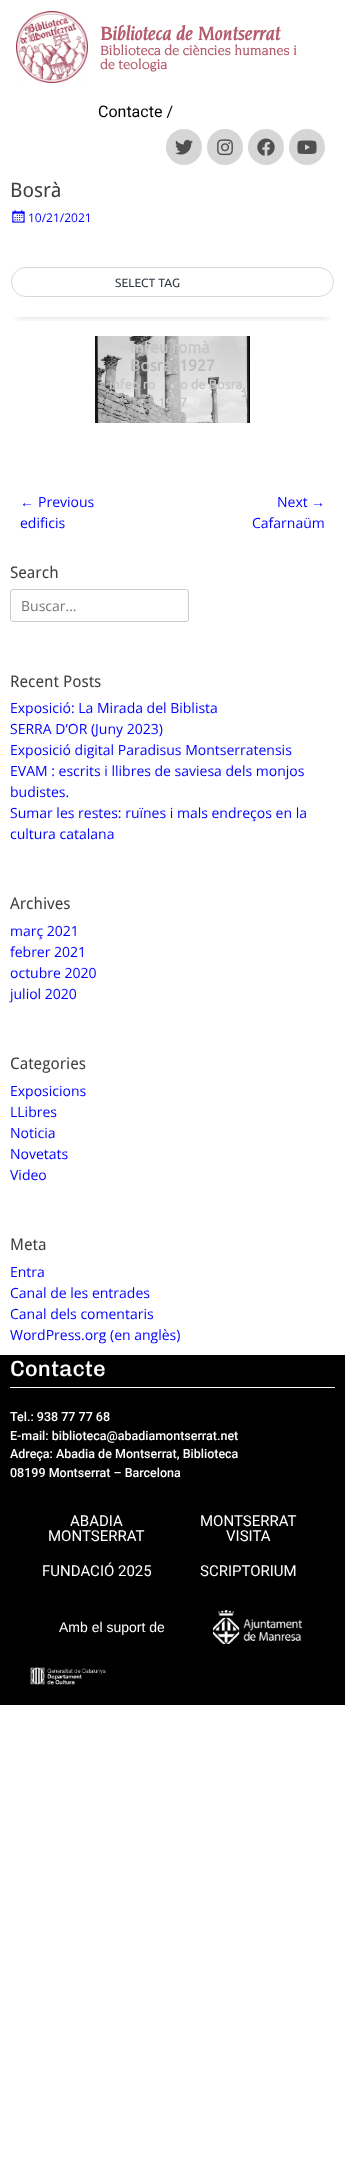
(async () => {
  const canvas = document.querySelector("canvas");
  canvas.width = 345;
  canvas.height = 2175;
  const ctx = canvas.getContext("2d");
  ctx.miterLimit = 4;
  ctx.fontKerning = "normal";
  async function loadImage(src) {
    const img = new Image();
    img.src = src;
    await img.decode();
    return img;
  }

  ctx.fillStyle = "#ffffff";
  ctx.fillRect(0, 0, 345, 2175);
  ctx.drawImage(await loadImage("img/1.png"), 16, 11, 72, 72);
  ctx.fillStyle = "#d6d6d6";
  ctx.beginPath();
  ctx.arc(184, 147, 18, 0, Math.PI * 2);
  ctx.fill();
  ctx.drawImage(await loadImage("img/2.png"), 175, 139, 18, 16);
  ctx.beginPath();
  ctx.arc(225, 147, 18, 0, Math.PI * 2);
  ctx.fill();
  ctx.drawImage(await loadImage("img/3.png"), 217, 139, 16, 17);
  ctx.beginPath();
  ctx.arc(266, 147, 18, 0, Math.PI * 2);
  ctx.fill();
  ctx.drawImage(await loadImage("img/4.png"), 257, 138, 18, 18);
  ctx.beginPath();
  ctx.arc(307, 147, 18, 0, Math.PI * 2);
  ctx.fill();
  ctx.drawImage(await loadImage("img/5.png"), 297, 140, 20, 14);
  ctx.drawImage(await loadImage("img/6.png"), 12, 210, 13, 13);
  ctx.save();
  ctx.beginPath();
  ctx.rect(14, 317, 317, 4);
  ctx.clip();
  ctx.fillStyle = "rgba(0, 0, 0, 0.16)";
  ctx.filter = "blur(3.5px)";
  ctx.beginPath();
  ctx.rect(16, 277, 313, 40);
  ctx.fill();
  ctx.filter = "none";
  ctx.restore();
  ctx.beginPath();
  ctx.roundRect(11.5, 267.5, 322, 29, 14.5);
  ctx.strokeStyle = "#d9d9d9";
  ctx.stroke();
  ctx.drawImage(await loadImage("img/7.png"), 95, 336, 155, 87);
  ctx.beginPath();
  ctx.roundRect(10.5, 589.5, 178, 32, 2.5);
  ctx.strokeStyle = "#cccccc";
  ctx.stroke();
  ctx.fillStyle = "#000000";
  ctx.fillRect(0, 1355, 345, 350);
  ctx.fillStyle = "#fcfcfc";
  ctx.fillRect(10, 1387, 325, 1);
  ctx.drawImage(await loadImage("img/8.png"), 213, 1610, 89, 34);
  ctx.drawImage(await loadImage("img/9.png"), 30, 1667, 76, 18);
  ctx.font = "italic bold 20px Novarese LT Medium";
  ctx.fillStyle = "#b45c6c";
  ctx.fillText("Biblioteca de Montserrat", 100, 40);
  ctx.font = "bold 14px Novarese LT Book";
  ctx.fillText("Biblioteca de ciències humanes i", 100, 55);
  ctx.fillText("de teologia", 100, 69);
  ctx.font = "16px Roboto";
  ctx.fillStyle = "#000000";
  ctx.fillText("Contacte /", 98, 117);
  ctx.font = "20px Droid Sans";
  ctx.fillStyle = "#404040";
  ctx.fillText("Bosrà", 10, 197);
  ctx.font = "12px Open Sans";
  ctx.fillStyle = "#0000ff";
  ctx.fillText("10/21/2021", 28, 222);
  ctx.font = "12px Ubuntu";
  ctx.fillStyle = "#323a45";
  ctx.fillText("SELECT TAG", 115, 287);
  ctx.font = "bold 16px Ubuntu";
  ctx.fillStyle = "#c7c7c7";
  ctx.fillText("mfeu romà", 130, 353);
  ctx.fillStyle = "#bdbdbd";
  ctx.fillText("Bosra. 1927", 130, 371);
  ctx.font = "bold 13px Ubuntu";
  ctx.fillStyle = "#c7c7c7";
  for (const [text, x, y] of [
    ["infeo ro", 109, 389],
    ["o de Bosra", 180, 389],
    ["1927", 158, 407],
  ]) {
    ctx.fillText(text, x, y);
  }
  ctx.font = "14px Liberation Sans";
  ctx.fillStyle = "#0000ff";
  ctx.fillText("←", 20, 507);
  ctx.font = "14px Open Sans";
  for (const [text, x, y] of [
    ["Previous", 38, 507],
    ["edificis", 20, 528],
    ["Next", 277, 507],
  ]) {
    ctx.fillText(text, x, y);
  }
  ctx.font = "14px Liberation Sans";
  ctx.fillText("→", 311, 507);
  ctx.font = "14px Open Sans";
  ctx.fillText("Cafarnaüm", 252, 528);
  ctx.font = "16px Droid Sans";
  ctx.fillStyle = "#404040";
  ctx.fillText("Search", 10, 578);
  ctx.font = "14px Open Sans";
  ctx.fillStyle = "#757575";
  ctx.fillText("Buscar...", 21, 611);
  ctx.font = "16px Droid Sans";
  ctx.fillStyle = "#404040";
  ctx.fillText("Recent Posts", 10, 687);
  ctx.font = "14px Open Sans";
  ctx.fillStyle = "#0000ff";
  for (const [text, x, y] of [
    ["Exposició: La Mirada del Biblista", 10, 713],
    ["SERRA D’OR (Juny 2023)", 10, 734],
    ["Exposició digital Paradisus Montserratensis", 10, 755],
    ["EVAM : escrits i llibres de saviesa dels monjos", 10, 776],
    ["budistes.", 10, 797],
    ["Sumar les restes: ruïnes i mals endreços en la", 10, 818],
    ["cultura catalana", 10, 839],
  ]) {
    ctx.fillText(text, x, y);
  }
  ctx.font = "16px Droid Sans";
  ctx.fillStyle = "#404040";
  ctx.fillText("Archives", 10, 909);
  ctx.font = "14px Open Sans";
  ctx.fillStyle = "#0000ff";
  for (const [text, x, y] of [
    ["març 2021", 10, 936],
    ["febrer 2021", 10, 957],
    ["octubre 2020", 10, 978],
    ["juliol 2020", 10, 999],
  ]) {
    ctx.fillText(text, x, y);
  }
  ctx.font = "16px Droid Sans";
  ctx.fillStyle = "#404040";
  ctx.fillText("Categories", 10, 1069);
  ctx.font = "14px Open Sans";
  ctx.fillStyle = "#0000ff";
  for (const [text, x, y] of [
    ["Exposicions", 10, 1096],
    ["LLibres", 10, 1117],
    ["Noticia", 10, 1138],
    ["Novetats", 10, 1159],
    ["Video", 10, 1180],
  ]) {
    ctx.fillText(text, x, y);
  }
  ctx.font = "16px Droid Sans";
  ctx.fillStyle = "#404040";
  ctx.fillText("Meta", 10, 1250);
  ctx.font = "14px Open Sans";
  ctx.fillStyle = "#0000ff";
  for (const [text, x, y] of [
    ["Entra", 10, 1277],
    ["Canal de les entrades", 10, 1298],
    ["Canal dels comentaris", 10, 1319],
    ["WordPress.org (en anglès)", 10, 1340],
  ]) {
    ctx.fillText(text, x, y);
  }
  ctx.font = "500 22px Chivo";
  ctx.fillStyle = "#ffffff";
  ctx.fillText("Contacte", 10, 1376);
  ctx.font = "500 12.5px Roboto";
  for (const [text, x, y] of [
    ["Tel.: 938 77 77 68", 10, 1421],
    ["E-mail: biblioteca@abadiamontserrat.net", 10, 1440],
    ["Adreça: Abadia de Montserrat, Biblioteca", 10, 1458],
    ["08199 Montserrat – Barcelona", 10, 1477],
  ]) {
    ctx.fillText(text, x, y);
  }
  ctx.font = "15px Roboto";
  for (const [text, x, y] of [
    ["ABADIA", 70, 1526],
    ["MONTSERRAT", 48, 1541],
    ["MONTSERRAT", 200, 1526],
    ["VISITA", 226, 1541],
    ["FUNDACIÓ 2025", 42, 1576],
    ["SCRIPTORIUM", 200, 1576],
  ]) {
    ctx.fillText(text, x, y);
  }
  ctx.font = "14px Liberation Sans";
  ctx.fillText("Amb el suport de", 59, 1632);
})();
